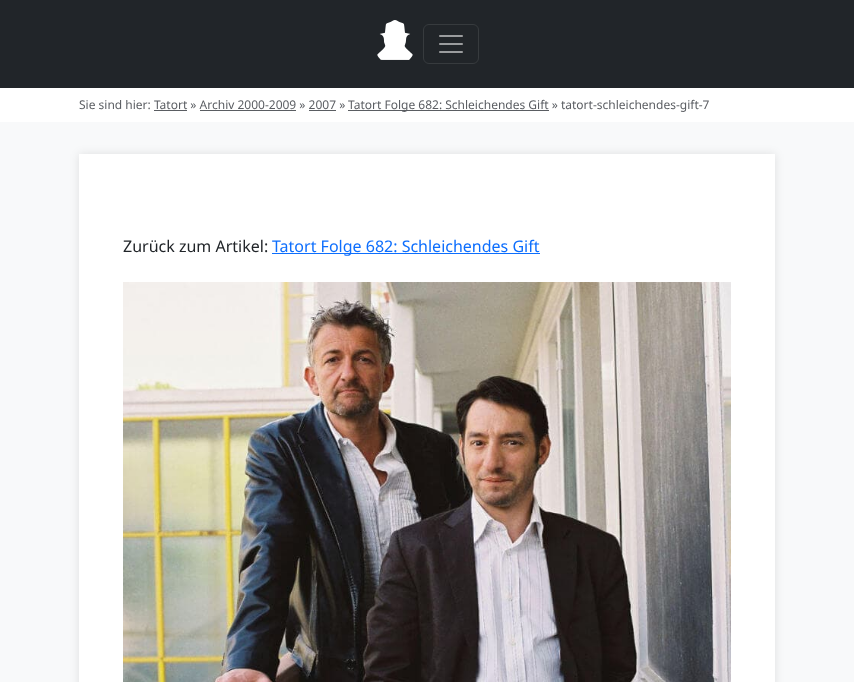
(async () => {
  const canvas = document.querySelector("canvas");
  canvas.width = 854;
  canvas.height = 682;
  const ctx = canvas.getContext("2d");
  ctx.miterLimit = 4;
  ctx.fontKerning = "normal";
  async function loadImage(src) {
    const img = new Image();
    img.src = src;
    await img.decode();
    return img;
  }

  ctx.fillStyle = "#f8f9fa";
  ctx.fillRect(0, 0, 854, 682);
  ctx.fillStyle = "#212529";
  ctx.fillRect(0, 0, 854, 88);
  ctx.drawImage(await loadImage("img/1.png"), 377, 20, 36, 40);
  ctx.beginPath();
  ctx.roundRect(423.5, 24.5, 55, 39, 5.5);
  ctx.strokeStyle = "#373b3e";
  ctx.stroke();
  ctx.drawImage(await loadImage("img/2.png"), 439, 35, 24, 18);
  for (const [x, y, w, h, color] of [
    [0, 88, 854, 34, "#ffffff"],
    [154, 110, 33, 1, "#5a5d62"],
    [200, 110, 96, 1, "#5a5d62"],
    [309, 110, 27, 1, "#5a5d62"],
    [348, 110, 201, 1, "#5a5d62"],
  ]) {
    ctx.fillStyle = color;
    ctx.fillRect(x, y, w, h);
  }
  ctx.fillStyle = "rgba(0, 0, 0, 0.1)";
  ctx.filter = "blur(5px)";
  ctx.beginPath();
  ctx.rect(79, 154, 696, 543);
  ctx.fill();
  ctx.filter = "none";
  ctx.fillStyle = "#ffffff";
  ctx.fillRect(79, 154, 696, 528);
  ctx.fillStyle = "#0d6efd";
  ctx.fillRect(272, 253, 268, 1);
  ctx.drawImage(await loadImage("img/3.png"), 123, 282, 608, 400);
  ctx.font = "12px Noto Sans";
  ctx.fillStyle = "#5a5d62";
  ctx.fillText("Sie sind hier: Tatort » Archiv 2000-2009 » 2007 »", 79, 109);
  ctx.fillText("Tatort Folge 682: Schleichendes Gift » tatort-schleichendes-gift-7", 348, 109);
  ctx.font = "16px Noto Sans";
  ctx.fillStyle = "#212529";
  ctx.fillText("Zurück zum Artikel:", 123, 252);
  ctx.fillStyle = "#0d6efd";
  ctx.fillText("Tatort Folge 682: Schleichendes Gift", 272, 252);
})();
